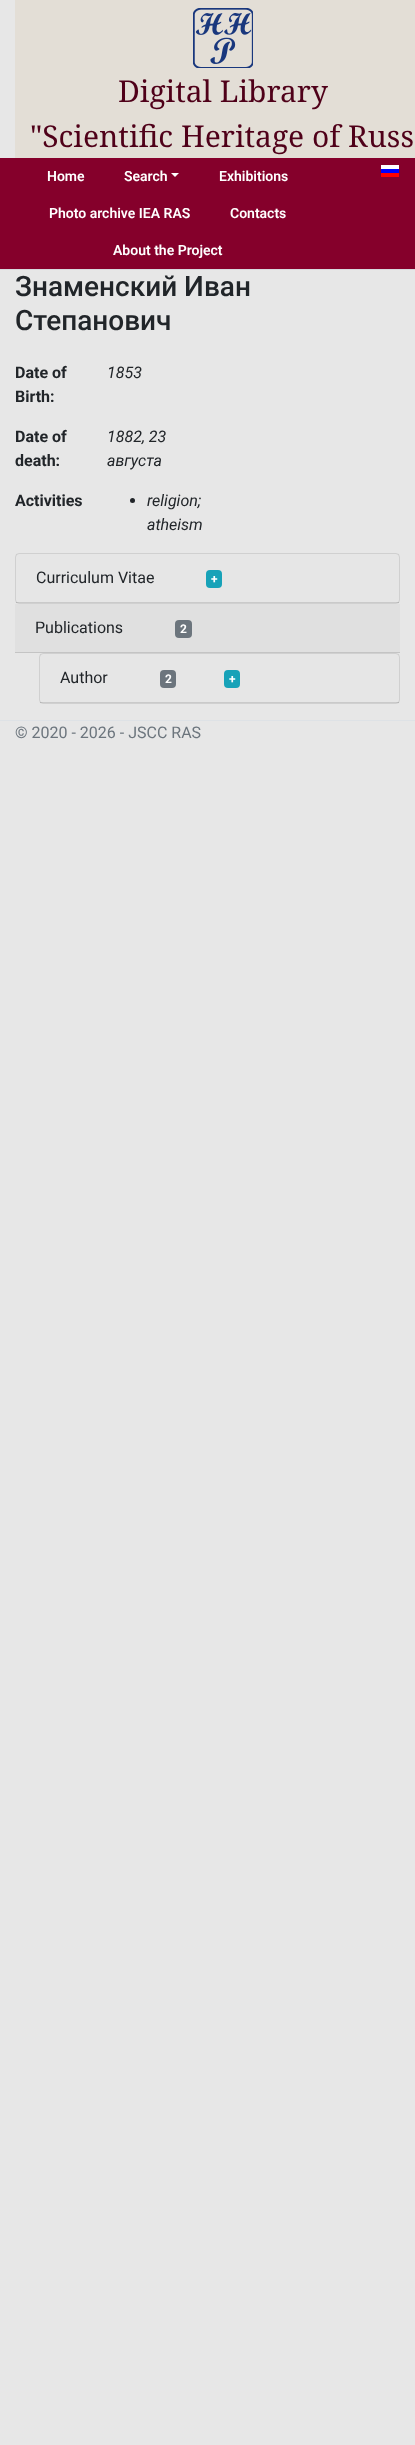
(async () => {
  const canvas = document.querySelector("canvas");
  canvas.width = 415;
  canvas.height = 2445;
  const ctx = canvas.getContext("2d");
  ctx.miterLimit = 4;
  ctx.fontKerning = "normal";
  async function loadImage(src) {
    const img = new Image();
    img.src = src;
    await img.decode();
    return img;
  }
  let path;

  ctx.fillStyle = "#e7e7e7";
  ctx.fillRect(0, 0, 415, 2445);
  ctx.fillStyle = "#e3ded6";
  ctx.fillRect(15, 0, 400, 158);
  ctx.drawImage(await loadImage("img/1.png"), 193, 8, 60, 60);
  ctx.fillStyle = "#85002b";
  ctx.fillRect(0, 158, 415, 111);
  ctx.fillStyle = "#d7dadd";
  ctx.fillRect(0, 269, 415, 1);
  ctx.fillStyle = "#ffffff";
  path = new Path2D("M171 173H179L175 177Z");
  ctx.fill(path);
  ctx.drawImage(await loadImage("img/2.png"), 381, 165, 18, 12);
  ctx.fillStyle = "#212529";
  ctx.beginPath();
  ctx.arc(132.5, 500.5, 2.5, 0, Math.PI * 2);
  ctx.fill();
  ctx.fillStyle = "#eeeeee";
  ctx.beginPath();
  ctx.roundRect(15.5, 553.5, 384, 50, 3.5);
  ctx.fill();
  ctx.strokeStyle = "#d0d0d0";
  ctx.stroke();
  ctx.fillStyle = "rgba(0, 0, 0, 0.03)";
  ctx.fillRect(16, 554, 383, 49);
  ctx.fillStyle = "rgba(0, 0, 0, 0.12)";
  ctx.fillRect(16, 602, 383, 1);
  ctx.fillStyle = "#17a2b8";
  ctx.beginPath();
  ctx.roundRect(206, 570, 16, 18, 4);
  ctx.fill();
  ctx.fillStyle = "#e0e0e0";
  ctx.fillRect(15, 604, 385, 48);
  ctx.fillStyle = "#c4c4c4";
  ctx.fillRect(15, 652, 385, 1);
  ctx.fillStyle = "#6c757d";
  ctx.beginPath();
  ctx.roundRect(175, 620, 17, 18, 4);
  ctx.fill();
  ctx.fillStyle = "#eeeeee";
  ctx.beginPath();
  ctx.roundRect(39.5, 653.5, 360, 50, 3.5);
  ctx.fill();
  ctx.stroke();
  ctx.fillStyle = "rgba(0, 0, 0, 0.03)";
  ctx.fillRect(40, 654, 359, 49);
  ctx.fillStyle = "rgba(0, 0, 0, 0.12)";
  ctx.fillRect(40, 702, 359, 1);
  ctx.fillStyle = "#6c757d";
  ctx.beginPath();
  ctx.roundRect(160, 670, 16, 18, 4);
  ctx.fill();
  ctx.fillStyle = "#17a2b8";
  ctx.beginPath();
  ctx.roundRect(224, 670, 16, 18, 4);
  ctx.fill();
  ctx.fillStyle = "#dee2e6";
  ctx.fillRect(0, 720, 415, 1);
  ctx.font = "30px Noto Serif";
  ctx.fillStyle = "#4f0019";
  ctx.fillText("Digital Library", 118, 102);
  ctx.fillText("\"Scientific Heritage of Russ", 30, 147);
  ctx.font = "600 14px Roboto";
  ctx.fillStyle = "#ffffff";
  for (const [text, x, y] of [
    ["Home", 47, 181],
    ["Search", 124, 181],
    ["Exhibitions", 219, 181],
    ["Photo archive IEA RAS", 49, 218],
    ["Contacts", 230, 218],
    ["About the Project", 113, 255],
  ]) {
    ctx.fillText(text, x, y);
  }
  ctx.font = "500 28px Roboto";
  ctx.fillStyle = "#212529";
  ctx.fillText("Знаменский Иван", 15, 296);
  ctx.fillText("Степанович", 15, 330);
  ctx.font = "bold 16px Roboto";
  ctx.fillText("Date of", 15, 378);
  ctx.fillText("Birth:", 15, 402);
  ctx.font = "italic 16px Roboto";
  ctx.fillText("1853", 107, 378);
  ctx.font = "bold 16px Roboto";
  ctx.fillText("Date of", 15, 442);
  ctx.fillText("death:", 15, 466);
  ctx.font = "italic 16px Roboto";
  ctx.fillText("1882, 23", 107, 442);
  ctx.fillText("августа", 107, 466);
  ctx.font = "bold 16px Roboto";
  ctx.fillText("Activities", 15, 506);
  ctx.font = "italic 16px Roboto";
  ctx.fillText("religion;", 147, 506);
  ctx.fillText("atheism", 147, 530);
  ctx.font = "16px Roboto";
  ctx.fillText("Curriculum Vitae", 36, 583);
  ctx.font = "bold 12px Roboto";
  ctx.fillStyle = "#ffffff";
  ctx.fillText("+", 211, 583);
  ctx.font = "16px Roboto";
  ctx.fillStyle = "#212529";
  ctx.fillText("Publications", 35, 633);
  ctx.font = "bold 12px Roboto";
  ctx.fillStyle = "#ffffff";
  ctx.fillText("2", 180, 633);
  ctx.font = "16px Roboto";
  ctx.fillStyle = "#212529";
  ctx.fillText("Author", 60, 683);
  ctx.font = "bold 12px Roboto";
  ctx.fillStyle = "#ffffff";
  ctx.fillText("2", 165, 683);
  ctx.fillText("+", 229, 683);
  ctx.font = "16px Roboto";
  ctx.fillStyle = "#6c757d";
  ctx.fillText("© 2020 - 2026 - JSСC RAS", 15, 738);
})();
